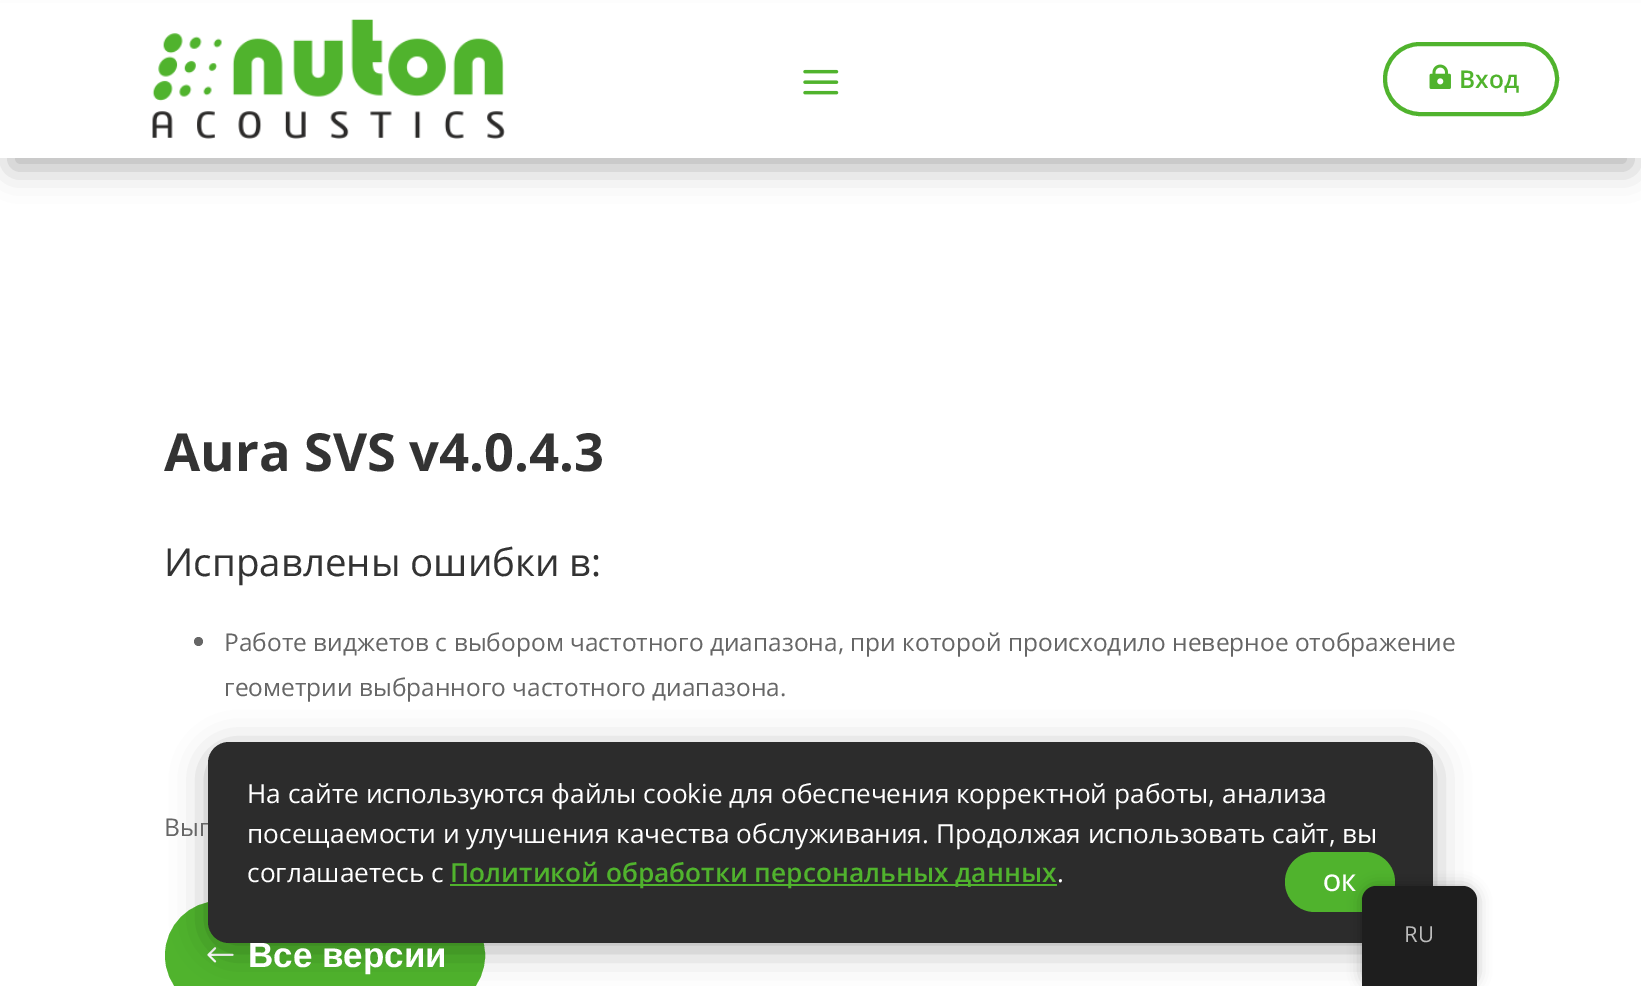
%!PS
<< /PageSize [1641 986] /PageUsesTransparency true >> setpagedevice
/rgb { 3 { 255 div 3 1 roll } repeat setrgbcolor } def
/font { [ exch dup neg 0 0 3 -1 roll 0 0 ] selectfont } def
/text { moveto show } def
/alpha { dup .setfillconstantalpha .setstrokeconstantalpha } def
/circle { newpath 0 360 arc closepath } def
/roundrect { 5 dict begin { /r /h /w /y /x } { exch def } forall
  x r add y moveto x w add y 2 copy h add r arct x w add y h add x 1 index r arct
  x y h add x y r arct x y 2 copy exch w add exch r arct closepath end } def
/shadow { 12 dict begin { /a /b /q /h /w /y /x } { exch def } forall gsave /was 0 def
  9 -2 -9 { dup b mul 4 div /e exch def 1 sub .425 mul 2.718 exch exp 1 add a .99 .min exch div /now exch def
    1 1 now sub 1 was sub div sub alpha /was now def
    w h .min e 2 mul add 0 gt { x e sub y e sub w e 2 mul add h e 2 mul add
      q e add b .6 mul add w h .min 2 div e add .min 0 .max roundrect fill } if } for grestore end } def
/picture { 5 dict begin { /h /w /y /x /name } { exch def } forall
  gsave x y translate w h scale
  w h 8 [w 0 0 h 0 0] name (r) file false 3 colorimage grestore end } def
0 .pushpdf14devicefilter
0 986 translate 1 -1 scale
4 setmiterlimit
255 255 255 rgb
0 0 1641 986 rectfill
0 0 0 rgb
11 32 1620 136 0 16 0.3 shadow
255 255 255 rgb
0 3 1641 155 rectfill
(img_01.rgb) 152 19 353 120 picture
(img_02.rgb) 803 69 36 26 picture
80 179 45 rgb
4 setlinewidth
1385 44 172 70 35 roundrect stroke
(img_03.rgb) 1429 64 22 25 picture
102 102 102 rgb
198.5 641.5 4.5 circle fill
80 179 45 rgb
172 908 306 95 47.5 roundrect gsave fill grestore
14 setlinewidth
stroke
(img_04.rgb) 207 947 27 16 picture
0 0 0 rgb
208 749 1225 201 21 17.5 0.3 shadow
/OpenSans-SemiBold 24.5 font
80 179 45 rgb
(Вход) 1459 88 text
/OpenSans-Bold 52.5 font
51 51 51 rgb
(Aura SVS v4.0.4.3) 164 471 text
/OpenSans-Regular 38.5 font
(Исправлены ошибки в:) 164 576 text
/OpenSans-Regular 24.5 font
102 102 102 rgb
(Работе виджетов с выбором частотного диапазона, при которой происходило неверное отображение) 224 651 text
(геометрии выбранного частотного диапазона.) 224 696 text
(Вып) 164 836 text
/LiberationSans-Bold 35 font
255 255 255 rgb
(Все версии) 248 967 text
44 44 44 rgb
208 742 1225 201 21 roundrect fill
/OpenSans-Regular 26.25 font
255 255 255 rgb
(На сайте используются файлы cookie для обеспечения корректной работы, анализа) 247 803 text
(посещаемости и улучшения качества обслуживания. Продолжая использовать сайт, вы) 247 843 text
(соглашаетесь с) 247 882 text
80 179 45 rgb
450 884 607 2 rectfill
/OpenSans-SemiBold 26.25 font
(Политикой обработки персональных данных) 450 882 text
/OpenSans-Regular 26.25 font
255 255 255 rgb
(.) 1057 882 text
80 179 45 rgb
1285 852 110 60 30 roundrect fill
/OpenSans-SemiBold 23 font
255 255 255 rgb
(ОК) 1323 891 text
0 0 0 rgb
1362 886 115 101 14 7 0.25 shadow
30 30 30 rgb
1376 886 moveto 87 0 rlineto 7.5 0 14 6.5 14 14 rcurveto 0 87 rlineto -115 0 rlineto 0 -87 rlineto 0 -7.5 6.5 -14 14 -14 rcurveto closepath fill
/OpenSans-Regular 22 font
189 189 189 rgb
(RU) 1404 942 text
.poppdf14devicefilter showpage
